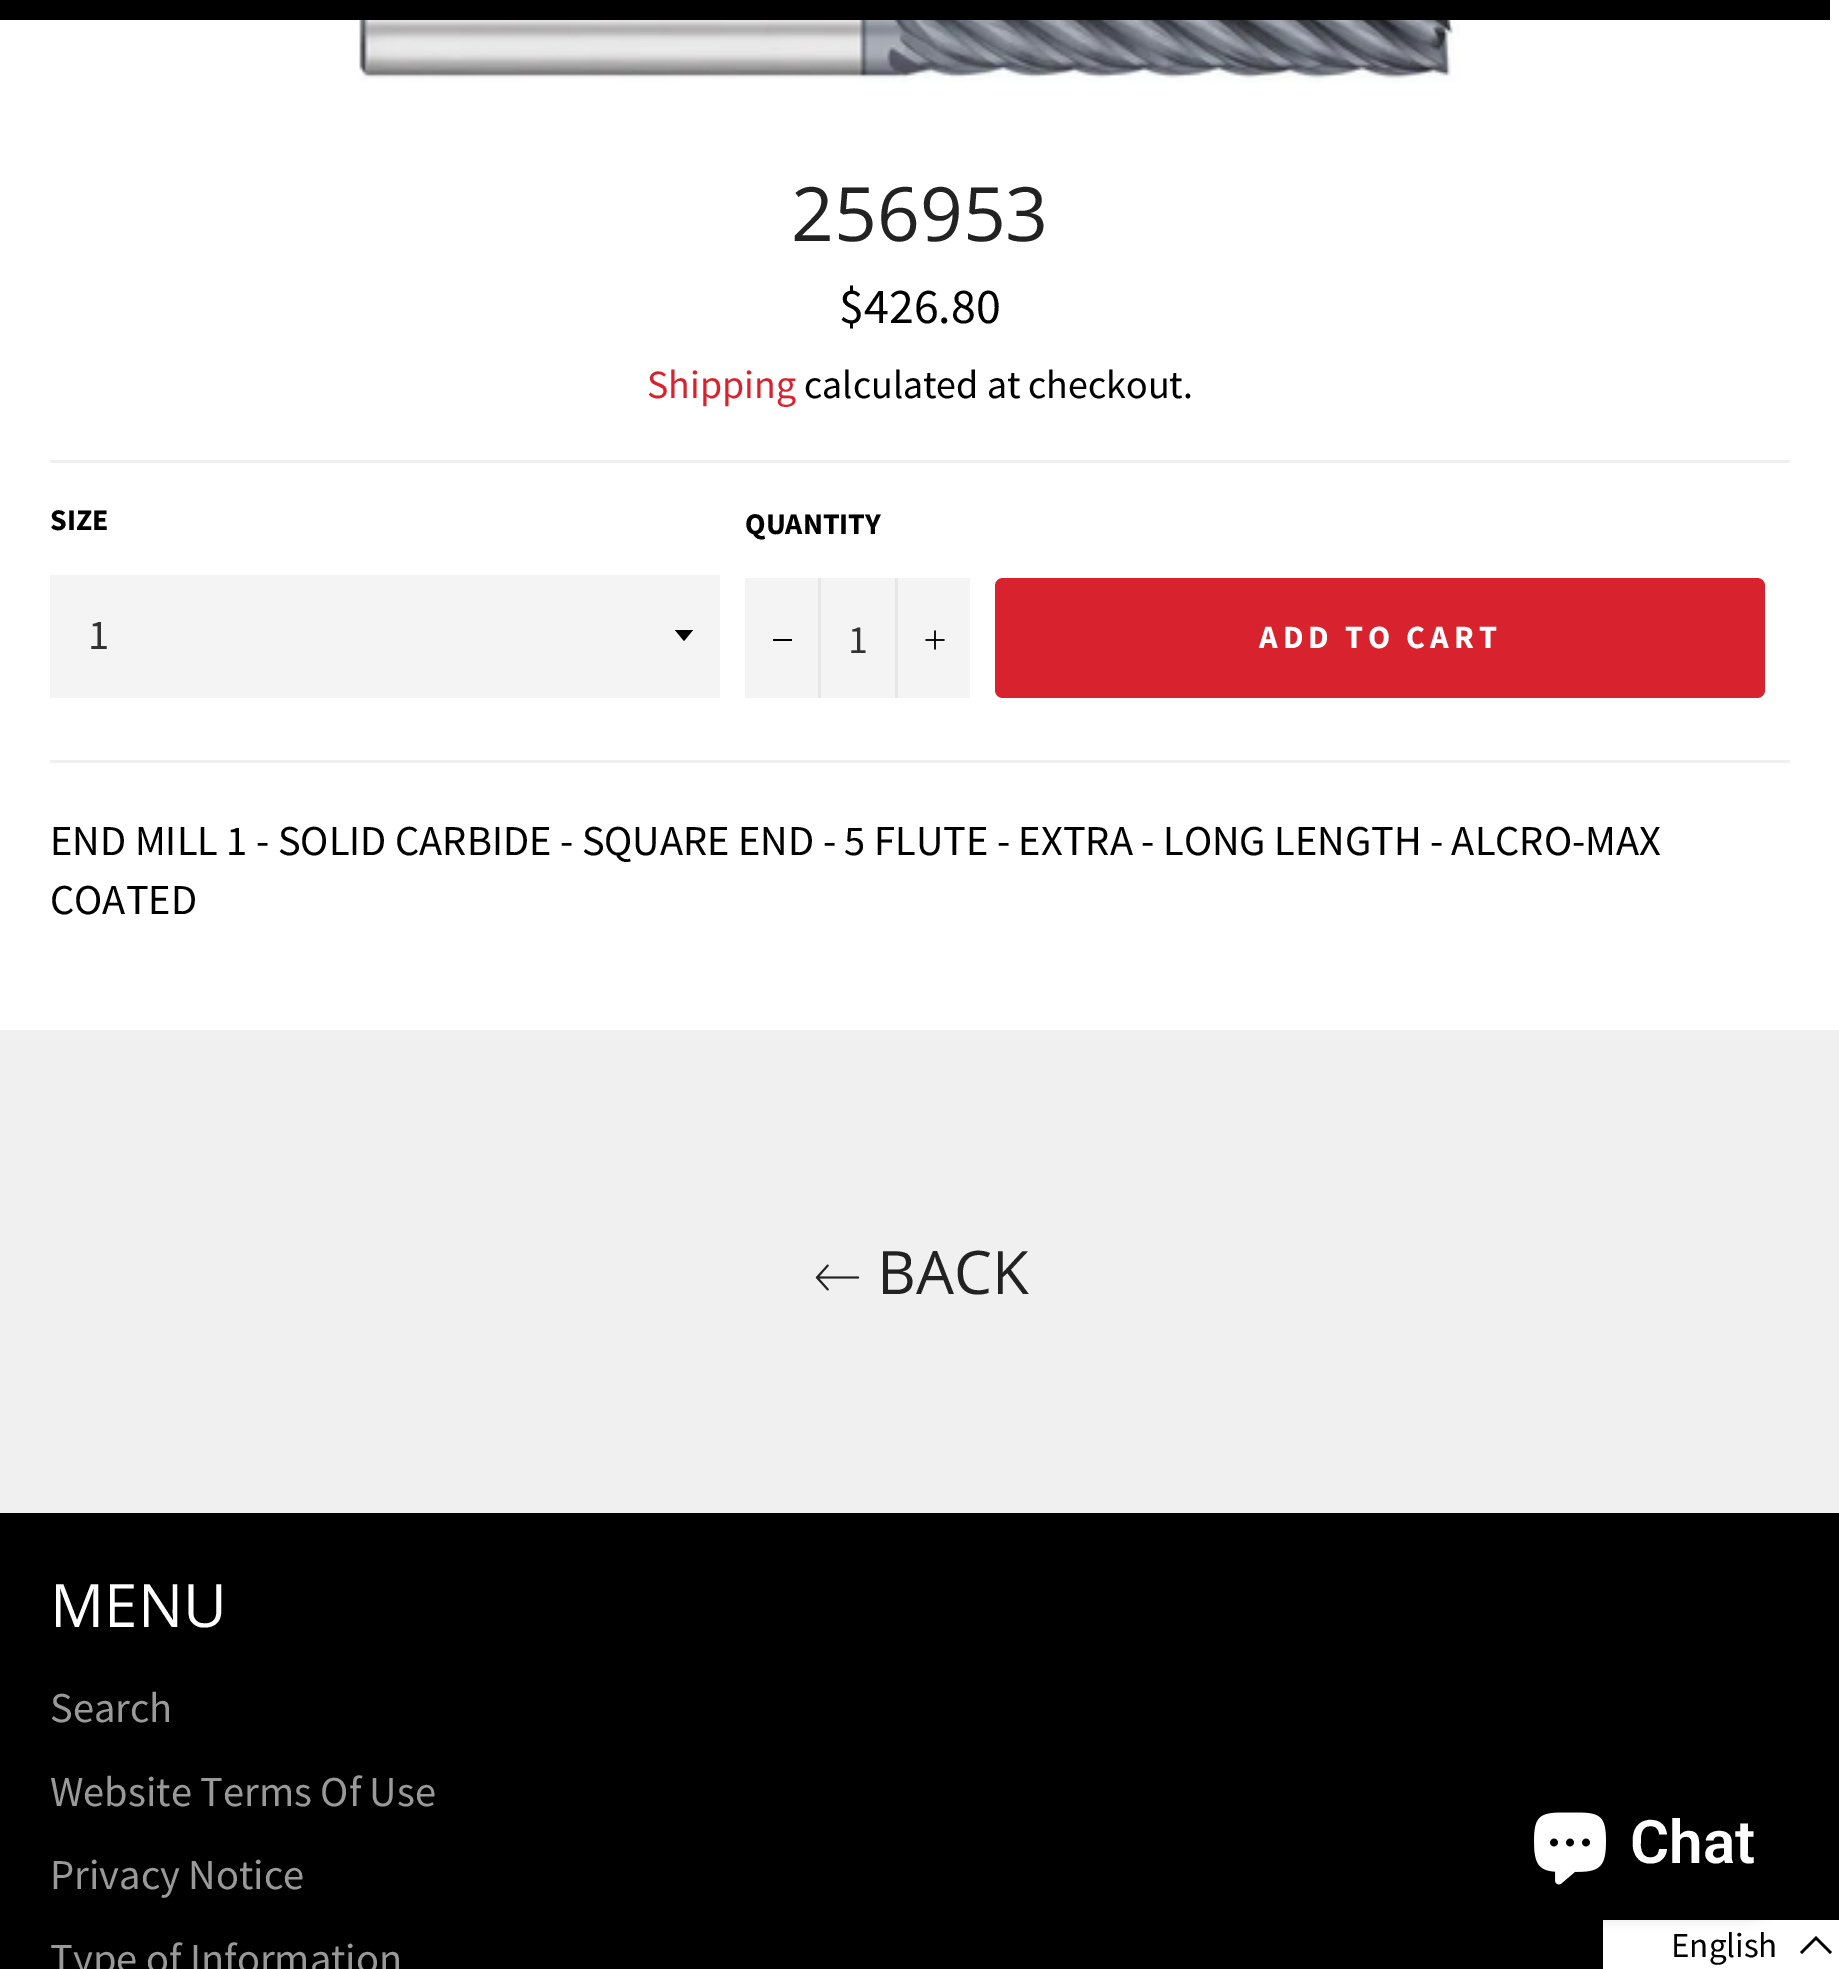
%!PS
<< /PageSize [1839 1969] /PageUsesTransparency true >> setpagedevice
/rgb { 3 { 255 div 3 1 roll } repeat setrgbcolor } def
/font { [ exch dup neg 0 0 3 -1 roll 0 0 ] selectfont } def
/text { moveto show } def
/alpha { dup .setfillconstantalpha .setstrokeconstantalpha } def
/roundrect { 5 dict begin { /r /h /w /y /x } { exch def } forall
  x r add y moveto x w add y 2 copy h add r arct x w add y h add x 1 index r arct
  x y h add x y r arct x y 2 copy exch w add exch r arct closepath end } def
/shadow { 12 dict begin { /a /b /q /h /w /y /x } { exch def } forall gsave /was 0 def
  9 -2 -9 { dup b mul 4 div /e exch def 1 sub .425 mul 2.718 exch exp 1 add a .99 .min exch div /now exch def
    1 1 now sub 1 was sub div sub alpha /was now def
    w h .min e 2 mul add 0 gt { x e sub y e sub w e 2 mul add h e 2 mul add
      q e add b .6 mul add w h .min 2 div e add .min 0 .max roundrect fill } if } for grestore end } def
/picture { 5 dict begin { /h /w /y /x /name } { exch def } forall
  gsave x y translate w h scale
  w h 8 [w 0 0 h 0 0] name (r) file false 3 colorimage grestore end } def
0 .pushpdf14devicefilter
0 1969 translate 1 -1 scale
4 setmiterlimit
255 255 255 rgb
0 0 1839 1969 rectfill
0 0 0 rgb
0 0 1830 20 rectfill
(img_01.rgb) 358 20 1102 63 picture
240 240 240 rgb
50 460 1740 3 rectfill
244 244 244 rgb
50 575 670 123 rectfill
0 0 0 rgb
675 630 moveto 9 11 rlineto 9 -11 rlineto closepath fill
244 244 244 rgb
745 578 225 120 rectfill
231 231 231 rgb
818 578 3 120 rectfill
0 0 0 rgb
773 639 19 2 rectfill
231 231 231 rgb
895 578 3 120 rectfill
(img_02.rgb) 925 630 20 20 picture
216 35 47 rgb
995 578 770 120 8 roundrect fill
240 240 240 rgb
50 760 1740 3 rectfill
0 1030 1839 483 rectfill
(img_03.rgb) 815 1264 45 27 picture
0 0 0 rgb
0 1513 1839 456 rectfill
255 255 255 rgb
1603 1920 236 49 rectfill
0 0 0 rgb
2.5 setlinewidth
1831 1953 moveto -15 -15 rlineto -15 15 rlineto stroke
gsave
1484 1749 moveto 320 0 rlineto 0 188 rlineto -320 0 rlineto closepath 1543 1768 moveto 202 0 rlineto 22 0 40 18 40 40 rcurveto 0 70 rlineto 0 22 -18 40 -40 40 rcurveto -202 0 rlineto -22 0 -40 -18 -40 -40 rcurveto 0 -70 rlineto 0 -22 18 -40 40 -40 rcurveto closepath eoclip newpath
1503 1768 282 150 40 6 0.15 shadow
grestore
(img_04.rgb) 1534 1812 72 73 picture
/OpenSans-Regular 75 font
34 34 34 rgb
(256953) 791 241 text
/SourceSansPro-Regular 50 font
0 0 0 rgb
($426.80) 839 323 text
/SourceSansPro-Regular 40 font
216 35 47 rgb
(Shipping) 647 398 text
0 0 0 rgb
(calculated at checkout.) 804 398 text
/SourceSansPro-Bold 30 font
(SIZE) 50 530 text
/SourceSansPro-Regular 42.5 font
51 51 51 rgb
(1) 88 649 text
/SourceSansPro-Bold 30 font
0 0 0 rgb
(QUANTITY) 745 534 text
/SourceSansPro-Regular 40 font
51 51 51 rgb
(1) 848 653 text
/SourceSansPro-Bold 32.5 font
255 255 255 rgb
1259 648 moveto 4.9 0 (ADD TO CART) ashow
/SourceSansPro-Regular 42.5 font
0 0 0 rgb
(END MILL 1 - SOLID CARBIDE - SQUARE END - 5 FLUTE - EXTRA - LONG LENGTH - ALCRO-MAX) 50 855 text
(COATED) 50 914 text
/OpenSans-Regular 60 font
34 34 34 rgb
(BACK) 877 1294 text
255 255 255 rgb
(MENU) 50 1627 text
/SourceSansPro-Regular 42.5 font
153 153 153 rgb
(Search) 50 1722 text
(Website Terms Of Use) 50 1806 text
(Privacy Notice) 50 1889 text
(Type of Information) 50 1973 text
/Roboto-SemiBold 60 font
255 255 255 rgb
(Chat) 1630 1863 text
/SourceSansPro-Regular 35 font
0 0 0 rgb
(English) 1671 1957 text
.poppdf14devicefilter showpage
